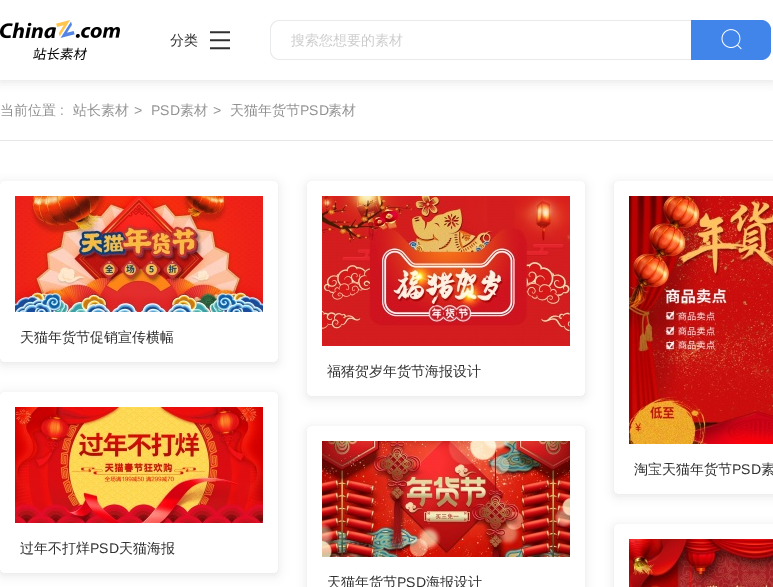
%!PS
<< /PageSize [773 587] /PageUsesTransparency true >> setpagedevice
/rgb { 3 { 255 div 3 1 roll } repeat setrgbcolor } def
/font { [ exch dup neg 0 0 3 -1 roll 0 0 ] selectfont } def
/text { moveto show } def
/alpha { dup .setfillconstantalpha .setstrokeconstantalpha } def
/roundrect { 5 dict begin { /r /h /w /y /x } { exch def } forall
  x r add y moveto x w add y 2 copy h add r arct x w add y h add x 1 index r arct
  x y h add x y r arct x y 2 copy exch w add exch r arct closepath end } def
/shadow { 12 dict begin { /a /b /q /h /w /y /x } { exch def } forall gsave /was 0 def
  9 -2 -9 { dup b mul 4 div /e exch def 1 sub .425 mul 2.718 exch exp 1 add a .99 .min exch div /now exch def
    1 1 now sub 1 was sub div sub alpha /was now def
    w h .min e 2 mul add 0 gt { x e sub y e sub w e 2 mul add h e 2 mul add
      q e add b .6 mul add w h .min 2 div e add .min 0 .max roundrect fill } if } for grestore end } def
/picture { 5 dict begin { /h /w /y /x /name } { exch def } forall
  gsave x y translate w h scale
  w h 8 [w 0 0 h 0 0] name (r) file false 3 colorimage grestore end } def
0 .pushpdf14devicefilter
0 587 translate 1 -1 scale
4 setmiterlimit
255 255 255 rgb
0 0 773 587 rectfill
gsave
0 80 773 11 rectclip
204 204 204 rgb
0 2 773 80 0 5 0.5 shadow
grestore
(img_01.rgb) 0 20 120 40 picture
(img_02.rgb) 210 31 20 19 picture
232 234 236 rgb
280 20 moveto 411 0 rlineto 0 40 rlineto -411 0 rlineto -6 0 -10 -4 -10 -10 rcurveto 0 -20 rlineto 0 -6 4 -10 10 -10 rcurveto closepath 280 21 moveto 411 0 rlineto 0 38 rlineto -411 0 rlineto -11 0 -9 -12 -9 -19 rcurveto 0 -7 -2 -19 9 -19 rcurveto closepath eofill
255 255 255 rgb
281 21 moveto 410 0 rlineto 0 38 rlineto -410 0 rlineto -5.5 0 -10 -4.5 -10 -10 rcurveto 0 -18 rlineto 0 -5.5 4.5 -10 10 -10 rcurveto closepath fill
65 133 235 rgb
691 20 moveto 70 0 rlineto 5.5 0 10 4.5 10 10 rcurveto 0 20 rlineto 0 5.5 -4.5 10 -10 10 rcurveto -70 0 rlineto closepath fill
(img_03.rgb) 721 29 21 21 picture
229 230 229 rgb
0 140 773 1 rectfill
gsave
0 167 moveto 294 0 rlineto 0 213 rlineto -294 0 rlineto closepath 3 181 moveto 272 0 rlineto 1.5 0 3 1.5 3 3 rcurveto 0 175 rlineto 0 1.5 -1.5 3 -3 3 rcurveto -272 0 rlineto -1.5 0 -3 -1.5 -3 -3 rcurveto 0 -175 rlineto 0 -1.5 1.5 -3 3 -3 rcurveto closepath eoclip newpath
204 204 204 rgb
0 183 278 181 3 5 0.5 shadow
grestore
(img_04.rgb) 15 196 248 116 picture
gsave
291 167 moveto 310 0 rlineto 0 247 rlineto -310 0 rlineto closepath 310 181 moveto 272 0 rlineto 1.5 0 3 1.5 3 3 rcurveto 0 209 rlineto 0 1.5 -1.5 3 -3 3 rcurveto -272 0 rlineto -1.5 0 -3 -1.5 -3 -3 rcurveto 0 -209 rlineto 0 -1.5 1.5 -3 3 -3 rcurveto closepath eoclip newpath
204 204 204 rgb
307 183 278 215 3 5 0.5 shadow
grestore
(img_05.rgb) 322 196 248 150 picture
gsave
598 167 moveto 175 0 rlineto 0 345 rlineto -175 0 rlineto closepath 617 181 moveto 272 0 rlineto 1.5 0 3 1.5 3 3 rcurveto 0 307 rlineto 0 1.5 -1.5 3 -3 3 rcurveto -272 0 rlineto -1.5 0 -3 -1.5 -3 -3 rcurveto 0 -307 rlineto 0 -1.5 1.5 -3 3 -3 rcurveto closepath eoclip newpath
204 204 204 rgb
614 183 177 313 3 5 0.5 shadow
grestore
(img_06.rgb) 629 196 144 248 picture
gsave
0 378 moveto 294 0 rlineto 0 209 rlineto -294 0 rlineto closepath 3 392 moveto 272 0 rlineto 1.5 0 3 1.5 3 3 rcurveto 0 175 rlineto 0 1.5 -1.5 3 -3 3 rcurveto -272 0 rlineto -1.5 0 -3 -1.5 -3 -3 rcurveto 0 -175 rlineto 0 -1.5 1.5 -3 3 -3 rcurveto closepath eoclip newpath
204 204 204 rgb
0 394 278 181 3 5 0.5 shadow
grestore
(img_07.rgb) 15 407 248 116 picture
gsave
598 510 moveto 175 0 rlineto 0 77 rlineto -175 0 rlineto closepath 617 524 moveto 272 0 rlineto 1.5 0 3 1.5 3 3 rcurveto 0 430 rlineto 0 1.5 -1.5 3 -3 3 rcurveto -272 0 rlineto -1.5 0 -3 -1.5 -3 -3 rcurveto 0 -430 rlineto 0 -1.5 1.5 -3 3 -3 rcurveto closepath eoclip newpath
204 204 204 rgb
614 526 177 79 3 5 0.5 shadow
grestore
(img_08.rgb) 629 539 144 48 picture
gsave
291 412 moveto 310 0 rlineto 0 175 rlineto -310 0 rlineto closepath 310 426 moveto 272 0 rlineto 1.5 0 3 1.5 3 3 rcurveto 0 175 rlineto 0 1.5 -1.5 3 -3 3 rcurveto -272 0 rlineto -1.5 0 -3 -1.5 -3 -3 rcurveto 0 -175 rlineto 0 -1.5 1.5 -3 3 -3 rcurveto closepath eoclip newpath
204 204 204 rgb
307 428 278 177 3 5 0.5 shadow
grestore
(img_09.rgb) 322 441 248 116 picture
/WenQuanYiZenHei-Medium 14 font
49 49 49 rgb
(分类) 170 45 text
204 204 204 rgb
(搜索您想要的素材) 291 45 text
145 145 145 rgb
(当前位置) 0 115 text
/LiberationSans-Regular 14 font
(:) 60 115 text
/WenQuanYiZenHei-Medium 14 font
(站长素材) 73 115 text
/LiberationSans-Regular 14 font
(>) 134 115 text
(PSD) 151 115 text
/WenQuanYiZenHei-Medium 14 font
(素材) 180 115 text
/LiberationSans-Regular 14 font
(>) 213 115 text
/WenQuanYiZenHei-Medium 14 font
(天猫年货节) 230 115 text
/LiberationSans-Regular 14 font
(PSD) 300 115 text
/WenQuanYiZenHei-Medium 14 font
(素材) 328 115 text
49 49 49 rgb
(天猫年货节促销宣传横幅) 20 342 text
(福猪贺岁年货节海报设计) 327 376 text
(淘宝天猫年货节) 634 474 text
/LiberationSans-Regular 14 font
(PSD) 732 474 text
/WenQuanYiZenHei-Medium 14 font
(素) 761 474 text
(过年不打烊) 20 553 text
/LiberationSans-Regular 14 font
(PSD) 90 553 text
/WenQuanYiZenHei-Medium 14 font
(天猫海报) 119 553 text
(天猫年货节) 327 587 text
/LiberationSans-Regular 14 font
(PSD) 397 587 text
/WenQuanYiZenHei-Medium 14 font
(海报设计) 426 587 text
.poppdf14devicefilter showpage
